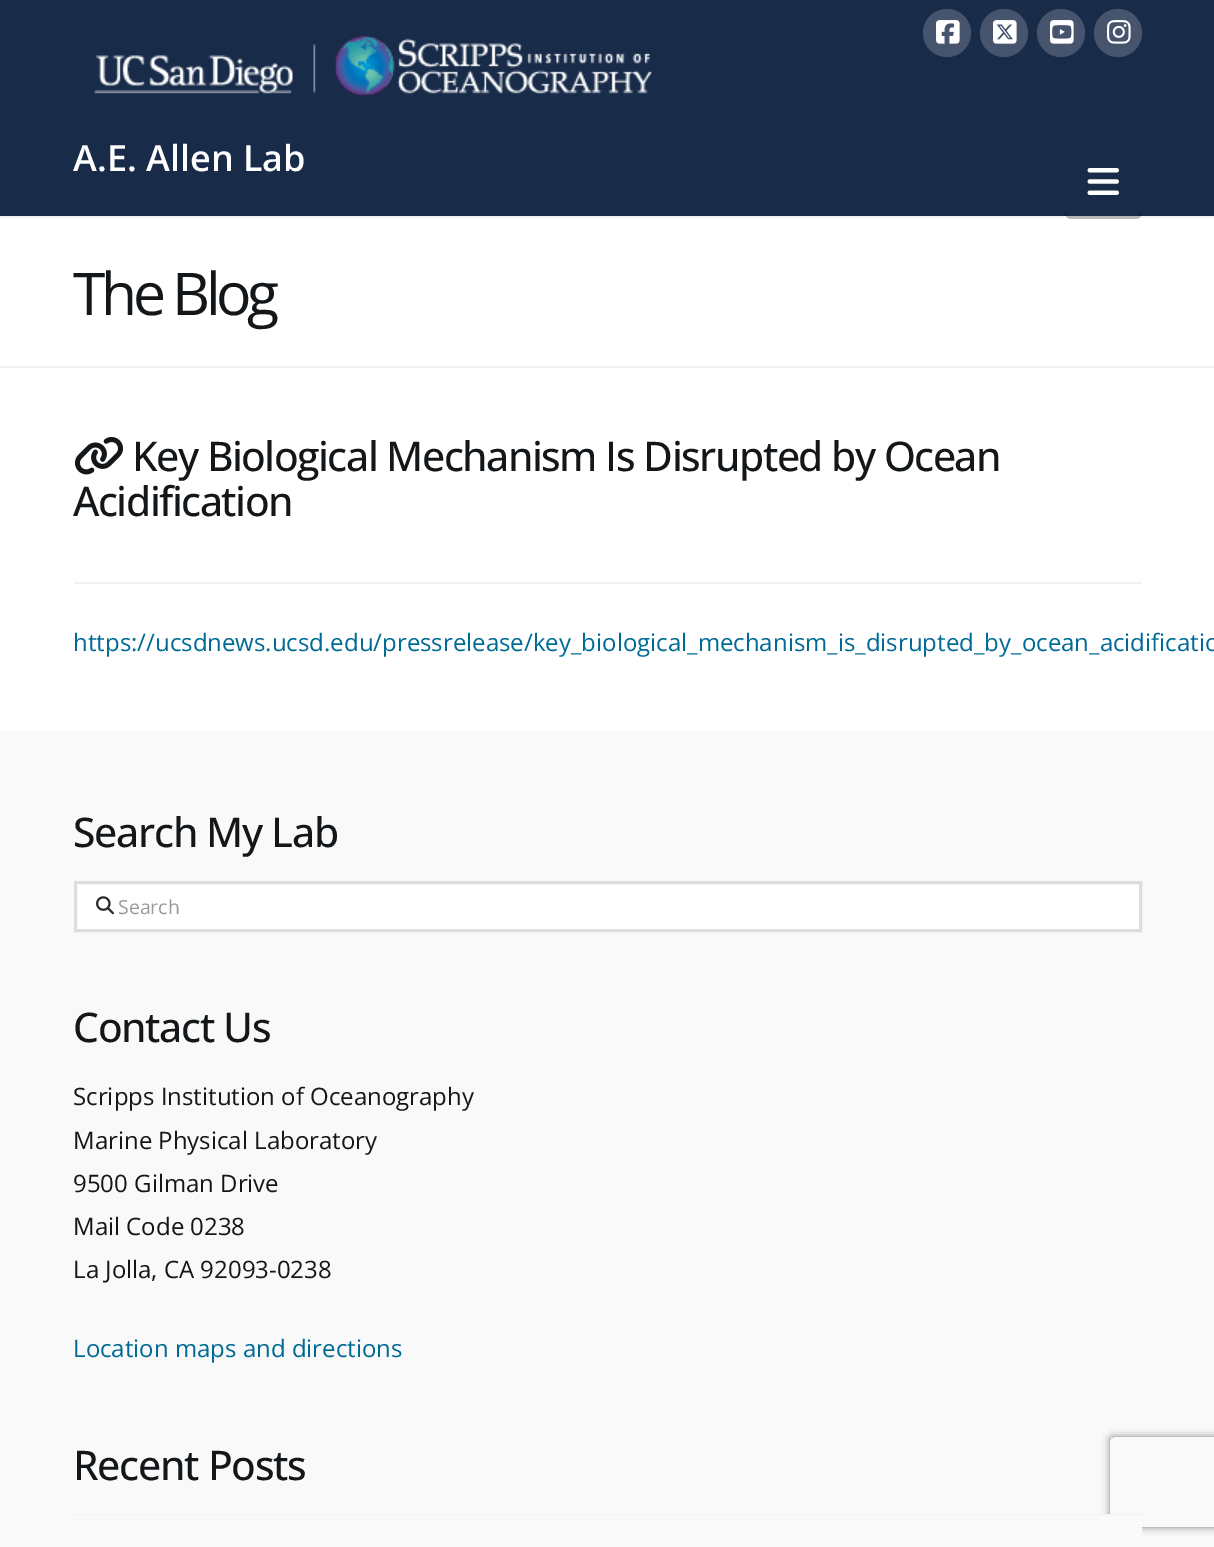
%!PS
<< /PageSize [1214 1547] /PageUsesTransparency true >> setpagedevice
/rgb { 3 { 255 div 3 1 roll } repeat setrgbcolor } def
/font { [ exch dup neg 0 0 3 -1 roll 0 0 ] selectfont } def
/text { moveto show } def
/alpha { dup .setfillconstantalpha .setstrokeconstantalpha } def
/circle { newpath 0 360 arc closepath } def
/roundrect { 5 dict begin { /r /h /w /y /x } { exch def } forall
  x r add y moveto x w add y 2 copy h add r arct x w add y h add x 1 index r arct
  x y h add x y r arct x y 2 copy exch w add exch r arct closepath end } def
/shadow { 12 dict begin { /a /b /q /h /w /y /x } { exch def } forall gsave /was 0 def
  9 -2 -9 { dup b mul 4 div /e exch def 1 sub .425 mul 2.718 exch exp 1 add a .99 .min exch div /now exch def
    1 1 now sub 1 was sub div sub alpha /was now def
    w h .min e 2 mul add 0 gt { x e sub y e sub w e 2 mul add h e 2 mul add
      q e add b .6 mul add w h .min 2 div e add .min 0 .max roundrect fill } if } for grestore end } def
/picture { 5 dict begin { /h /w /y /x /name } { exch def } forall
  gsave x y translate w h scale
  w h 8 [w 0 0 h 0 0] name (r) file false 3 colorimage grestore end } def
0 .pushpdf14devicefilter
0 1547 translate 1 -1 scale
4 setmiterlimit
255 255 255 rgb
0 0 1214 1547 rectfill
24 43 73 rgb
0 0 1214 216 rectfill
(img_01.rgb) 94 35 558 61 picture
70 85 109 rgb
947 33 24 circle fill
(img_02.rgb) 936 20 24 24 picture
1004 33 24 circle fill
(img_03.rgb) 993 20 24 24 picture
1061 33 24 circle fill
(img_04.rgb) 1050 20 24 24 picture
1118 33 24 circle fill
(img_05.rgb) 1107 20 24 24 picture
242 242 242 rgb
0 216 1214 2 rectfill
0.25 alpha
0 0 0 rgb
1065 210 moveto 0 3 rlineto 0 3 3 6 6 6 rcurveto 65 0 rlineto 3 0 6 -3 6 -6 rcurveto 0 -57 rlineto 0 -2 rlineto 0 56 rlineto 0 3 -3 6 -6 6 rcurveto -65 0 rlineto -3 0 -6 -3 -6 -6 rcurveto closepath fill
1 alpha
(img_06.rgb) 1087 168 32 27 picture
242 242 242 rgb
0 366 1214 2 rectfill
74 582 1068 2 rectfill
(img_07.rgb) 74 437 50 38 picture
249 249 249 rgb
0 731 1214 816 rectfill
255 255 255 rgb
75.5 882.5 moveto 1065 0 rlineto 0 48 rlineto -1065 0 rlineto closepath gsave fill grestore
221 221 221 rgb
3 setlinewidth
stroke
(img_08.rgb) 96 896 18 19 picture
gsave
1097 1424 moveto 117 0 rlineto 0 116 rlineto -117 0 rlineto closepath 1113 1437 moveto 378 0 rlineto 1.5 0 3 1.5 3 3 rcurveto 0 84 rlineto 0 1.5 -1.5 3 -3 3 rcurveto -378 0 rlineto -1.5 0 -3 -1.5 -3 -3 rcurveto 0 -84 rlineto 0 -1.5 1.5 -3 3 -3 rcurveto closepath eoclip newpath
128 128 128 rgb
1110 1437 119 90 3 4 1 shadow
grestore
242 242 242 rgb
74 1514 1068 1 rectfill
250 250 250 rgb
1101 1515 41 21 rectfill
/OpenSans-SemiBold 36 font
255 255 255 rgb
(A.E. Allen Lab) 73 171 text
/OpenSans-Regular 59 font
20 23 26 rgb
73 315 moveto -4.5 0 (The Blog) ashow
/OpenSans-Medium 40.8 font
132 471 moveto -1.45 0 (Key Biological Mechanism Is Disrupted by Ocean) ashow
73 516 moveto -1.45 0 (Acidification) ashow
/OpenSans-Regular 24 font
0 106 150 rgb
(https://ucsdnews.ucsd.edu/pressrelease/key_biological_mechanism_is_disrupted_by_ocean_acidificatio) 73 651 text
/OpenSans-Medium 40.8 font
20 23 26 rgb
73 847 moveto -1.25 0 (Search My Lab) ashow
/OpenSans-Regular 19.5 font
153 153 153 rgb
(Search) 118 914 text
/OpenSans-Medium 40.8 font
20 23 26 rgb
73 1042 moveto -1.25 0 (Contact Us) ashow
/OpenSans-Regular 24 font
(Scripps Institution of Oceanography) 73 1105 text
(Marine Physical Laboratory) 73 1149 text
(9500 Gilman Drive) 73 1192 text
(Mail Code 0238) 73 1235 text
(La Jolla, CA 92093-0238) 73 1278 text
0 106 150 rgb
(Location maps and directions) 73 1357 text
/OpenSans-Medium 40.8 font
20 23 26 rgb
73 1480 moveto -1.25 0 (Recent Posts) ashow
.poppdf14devicefilter showpage
